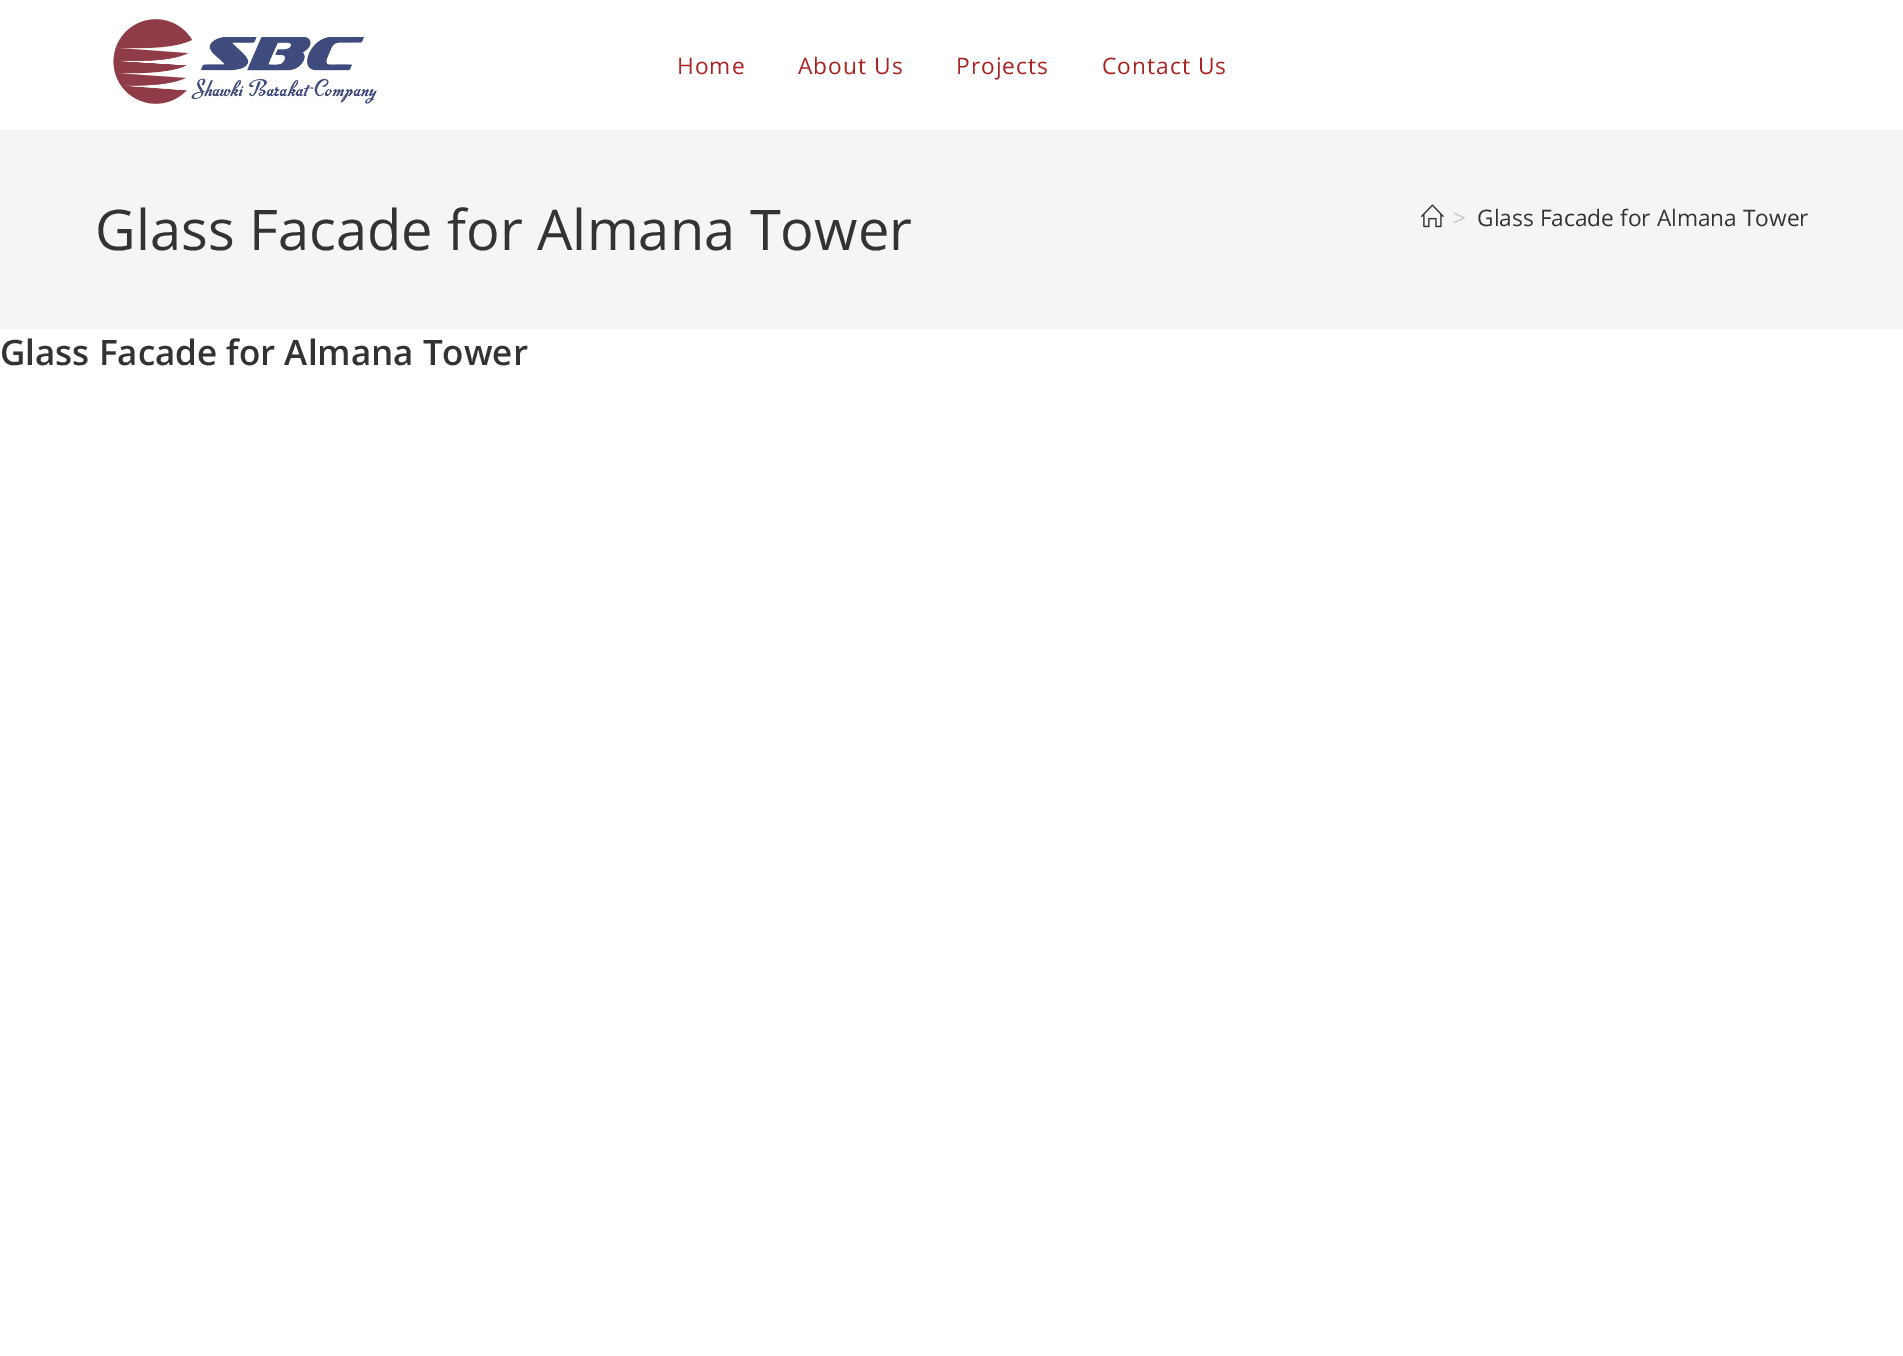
%!PS
<< /PageSize [1903 1356] >> setpagedevice
/rgb { 3 { 255 div 3 1 roll } repeat setrgbcolor } def
/font { [ exch dup neg 0 0 3 -1 roll 0 0 ] selectfont } def
/text { moveto show } def
/picture { 5 dict begin { /h /w /y /x /name } { exch def } forall
  gsave x y translate w h scale
  w h 8 [w 0 0 h 0 0] name (r) file false 3 colorimage grestore end } def
0 1356 translate 1 -1 scale
4 setmiterlimit
255 255 255 rgb
0 0 1903 1356 rectfill
241 241 241 rgb
0 130 1903 2 rectfill
(img_01.rgb) 113 19 264 85 picture
245 245 245 rgb
0 132 1903 197 rectfill
(img_02.rgb) 1421 204 23 24 picture
/OpenSans-Regular 22.75 font
170 34 34 rgb
677 74 moveto 1 0 (Home) ashow
798 74 moveto 1 0 (About Us) ashow
956 74 moveto 1 0 (Projects) ashow
1102 74 moveto 1 0 (Contact Us) ashow
/OpenSans-Regular 56 font
51 51 51 rgb
(Glass Facade for Almana Tower) 95 250 text
/OpenSans-Regular 22.75 font
198 198 198 rgb
(>) 1453 226 text
51 51 51 rgb
(Glass Facade for Almana Tower) 1477 226 text
/OpenSans-SemiBold 35 font
(Glass Facade for Almana Tower) 0 365 text
showpage
